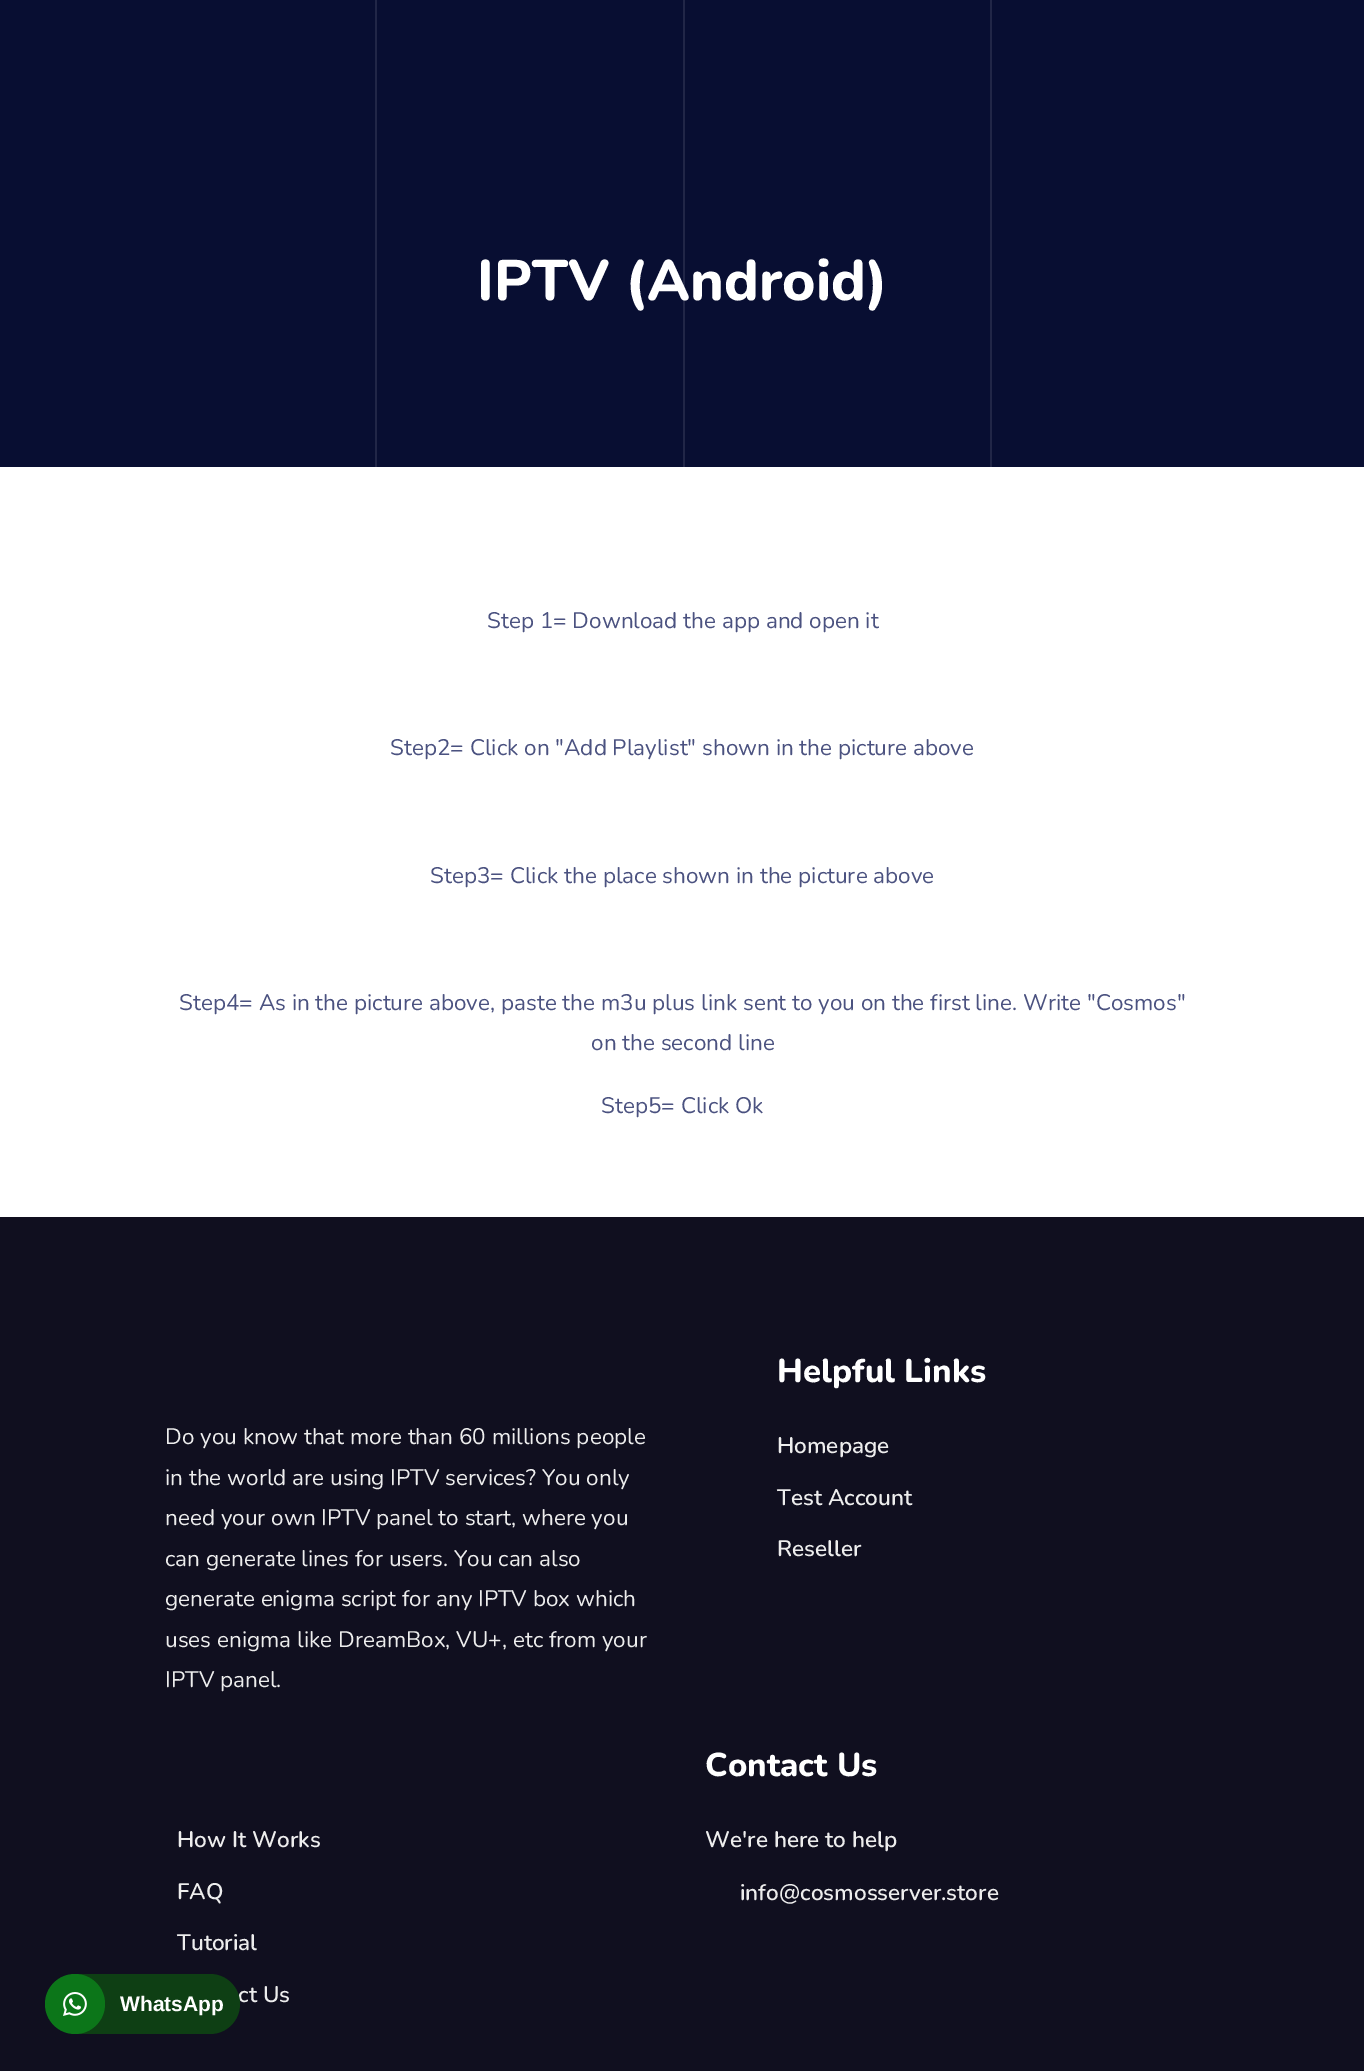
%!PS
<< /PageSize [1364 2071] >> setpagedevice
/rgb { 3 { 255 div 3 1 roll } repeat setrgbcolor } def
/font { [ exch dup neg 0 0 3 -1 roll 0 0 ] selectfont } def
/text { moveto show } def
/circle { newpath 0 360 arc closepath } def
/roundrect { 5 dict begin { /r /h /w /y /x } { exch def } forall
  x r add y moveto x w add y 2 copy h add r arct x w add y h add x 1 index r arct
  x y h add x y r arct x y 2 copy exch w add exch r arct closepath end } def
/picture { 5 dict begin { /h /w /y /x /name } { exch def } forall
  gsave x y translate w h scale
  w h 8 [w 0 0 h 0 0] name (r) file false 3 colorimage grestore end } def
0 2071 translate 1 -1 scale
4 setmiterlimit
255 255 255 rgb
0 0 1364 2071 rectfill
8 14 50 rgb
0 0 1364 467 rectfill
33 38 71 rgb
375 0 2 467 rectfill
683 0 2 467 rectfill
990 0 2 467 rectfill
16 15 31 rgb
0 1217 1364 854 rectfill
/Nunito-ExtraBold 57 font
255 255 255 rgb
(IPTV \(Android\)) 477 300 text
/Nunito-Regular 22.5 font
75 82 128 rgb
(Step 1= Download the app and open it) 487 628 text
(Step2= Click on "Add Playlist" shown in the picture above) 390 755 text
(Step3= Click the place shown in the picture above) 430 883 text
(Step4= As in the picture above, paste the m3u plus link sent to you on the first line. Write "Cosmos") 179 1010 text
(on the second line) 591 1050 text
(Step5= Click Ok) 601 1113 text
237 237 237 rgb
(Do you know that more than 60 millions people) 165 1444 text
(in the world are using IPTV services? You only) 165 1485 text
(need your own IPTV panel to start, where you) 165 1525 text
(can generate lines for users. You can also) 165 1566 text
(generate enigma script for any IPTV box which) 165 1606 text
(uses enigma like DreamBox, VU+, etc from your) 165 1647 text
(IPTV panel.) 165 1687 text
/Nunito-ExtraBold 33 font
255 255 255 rgb
(Helpful Links) 777 1382 text
/Nunito-SemiBold 22.5 font
237 237 237 rgb
(Homepage) 777 1453 text
(Test Account) 777 1505 text
(Reseller) 777 1556 text
(How It Works) 177 1847 text
(FAQ) 177 1899 text
(Tutorial) 177 1950 text
(ct Us) 238 2002 text
/Nunito-ExtraBold 33 font
255 255 255 rgb
(Contact Us) 705 1776 text
/Nunito-SemiBold 22.5 font
237 237 237 rgb
(We're here to help) 705 1847 text
(info@cosmosserver.store) 740 1900 text
14 63 20 rgb
53 1974 187 60 30 roundrect fill
12 118 25 rgb
75 2004 30 circle fill
(img_01.rgb) 63 1992 24 24 picture
/LiberationSans-Bold 21 font
255 255 255 rgb
(WhatsApp) 120 2011 text
showpage
